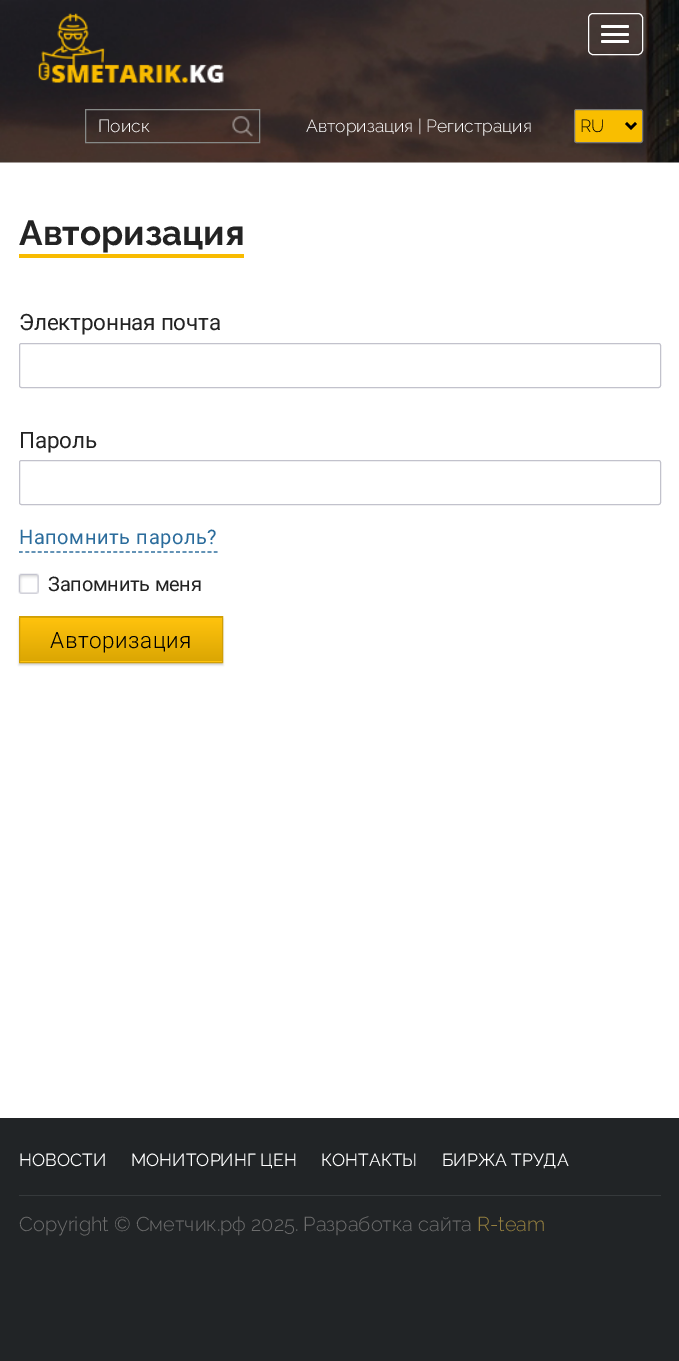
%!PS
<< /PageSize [679 1361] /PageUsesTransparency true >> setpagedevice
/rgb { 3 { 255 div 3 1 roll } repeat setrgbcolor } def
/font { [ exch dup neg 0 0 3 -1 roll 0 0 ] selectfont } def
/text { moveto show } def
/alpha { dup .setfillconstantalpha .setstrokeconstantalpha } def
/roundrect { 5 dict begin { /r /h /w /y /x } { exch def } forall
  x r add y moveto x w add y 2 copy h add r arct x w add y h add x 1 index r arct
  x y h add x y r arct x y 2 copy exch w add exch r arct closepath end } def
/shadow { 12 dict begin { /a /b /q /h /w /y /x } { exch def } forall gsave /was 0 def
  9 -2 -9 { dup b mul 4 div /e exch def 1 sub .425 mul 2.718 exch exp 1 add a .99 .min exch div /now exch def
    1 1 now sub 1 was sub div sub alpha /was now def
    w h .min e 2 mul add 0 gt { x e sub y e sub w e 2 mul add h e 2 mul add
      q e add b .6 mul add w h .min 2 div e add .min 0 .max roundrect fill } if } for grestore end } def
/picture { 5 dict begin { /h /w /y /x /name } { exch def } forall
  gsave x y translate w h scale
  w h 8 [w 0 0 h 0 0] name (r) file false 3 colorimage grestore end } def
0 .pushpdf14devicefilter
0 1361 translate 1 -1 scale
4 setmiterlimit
255 255 255 rgb
0 0 679 1361 rectfill
(img_01.rgb) 0 0 679 163 picture
(img_02.rgb) 38 13 186 70 picture
588.5 13.5 54 41 4.5 roundrect stroke
601 25 28 3 1.5 roundrect fill
601 33 28 3 1.5 roundrect fill
601 40 28 3 1.5 roundrect fill
134 137 135 rgb
85.5 109.5 174 33 rectstroke
(img_03.rgb) 232 116 21 21 picture
249 190 0 rgb
574.5 109.5 68 33 2 roundrect gsave fill grestore
118 118 118 rgb
stroke
1 1 1 rgb
2.5 setlinewidth
626 123 moveto 5 5 rlineto 5 -5 rlineto stroke
248 187 0 rgb
19 254 225 4 rectfill
194 194 204 rgb
1 setlinewidth
19.5 343.5 641 44 2 roundrect stroke
19.5 460.5 641 44 2 roundrect stroke
43 108 156 rgb
1.2 setlinewidth
[3.75 2.54] 0 setdash
19 552 moveto 198.5 0 rlineto stroke
(img_04.rgb) 18 573 21 21 picture
0 0 0 rgb
19 619 204 46 0 1 0.19 shadow
gsave 19 617 moveto 204 0 rlineto 0 1 rlineto -204 0 rlineto closepath clip newpath
<< /ShadingType 2 /ColorSpace /DeviceRGB /Coords [121 618 121 574] /Extend [true true] /Function << /FunctionType 2 /Domain [0 1] /C0 [0.859 0.651 0.012] /C1 [1 0.765 0.051] /N 1 >> >> shfill grestore
gsave 20 618 moveto 202 0 rlineto 0 43 rlineto -202 0 rlineto closepath clip newpath
<< /ShadingType 2 /ColorSpace /DeviceRGB /Coords [121 661 121 618] /Extend [true true] /Function << /FunctionType 2 /Domain [0 1] /C0 [0.859 0.651 0.012] /C1 [1 0.765 0.051] /N 1 >> >> shfill grestore
gsave 19 661 moveto 204 0 rlineto 0 1 rlineto -204 0 rlineto closepath clip newpath
<< /ShadingType 2 /ColorSpace /DeviceRGB /Coords [121 705 121 661] /Extend [true true] /Function << /FunctionType 2 /Domain [0 1] /C0 [0.859 0.651 0.012] /C1 [1 0.765 0.051] /N 1 >> >> shfill grestore
209 159 4 rgb
1 setlinewidth
[] 0 setdash
19.5 616.5 203 46 rectstroke
33 36 38 rgb
0 1118 679 243 rectfill
53 57 59 rgb
19 1195 642 1 rectfill
/Raleway-Light 17.5 font
255 255 255 rgb
(Поиск) 98 132 text
(Авторизация | Регистрация) 306 132 text
1 1 1 rgb
(RU) 580 132 text
/Raleway-Bold 35 font
35 35 35 rgb
(Авторизация) 19 245 text
/Roboto-Regular 22.5 font
19 330 moveto -0.25 0 (Электронная почта) ashow
19 448 moveto -0.25 0 (Пароль) ashow
/Roboto-Regular 20 font
43 108 156 rgb
19 544 moveto 0.6 0 (Напомнить пароль?) ashow
35 35 35 rgb
48 591 moveto -0.25 0 (Запомнить меня) ashow
/Roboto-Light 22.5 font
1 1 1 rgb
50 648 moveto 0.5 0 (Авторизация) ashow
/Raleway-Regular 17.5 font
255 255 255 rgb
(НОВОСТИ) 19 1166 text
(МОНИТОРИНГ ЦЕН) 131 1166 text
(КОНТАКТЫ) 321 1166 text
(БИРЖА ТРУДА) 442 1166 text
/Raleway-Light 20 font
109 109 109 rgb
(Copyright © Сметчик.рф 2025. Разработка сайта) 19 1231 text
148 127 63 rgb
(R-team) 477 1231 text
.poppdf14devicefilter showpage
